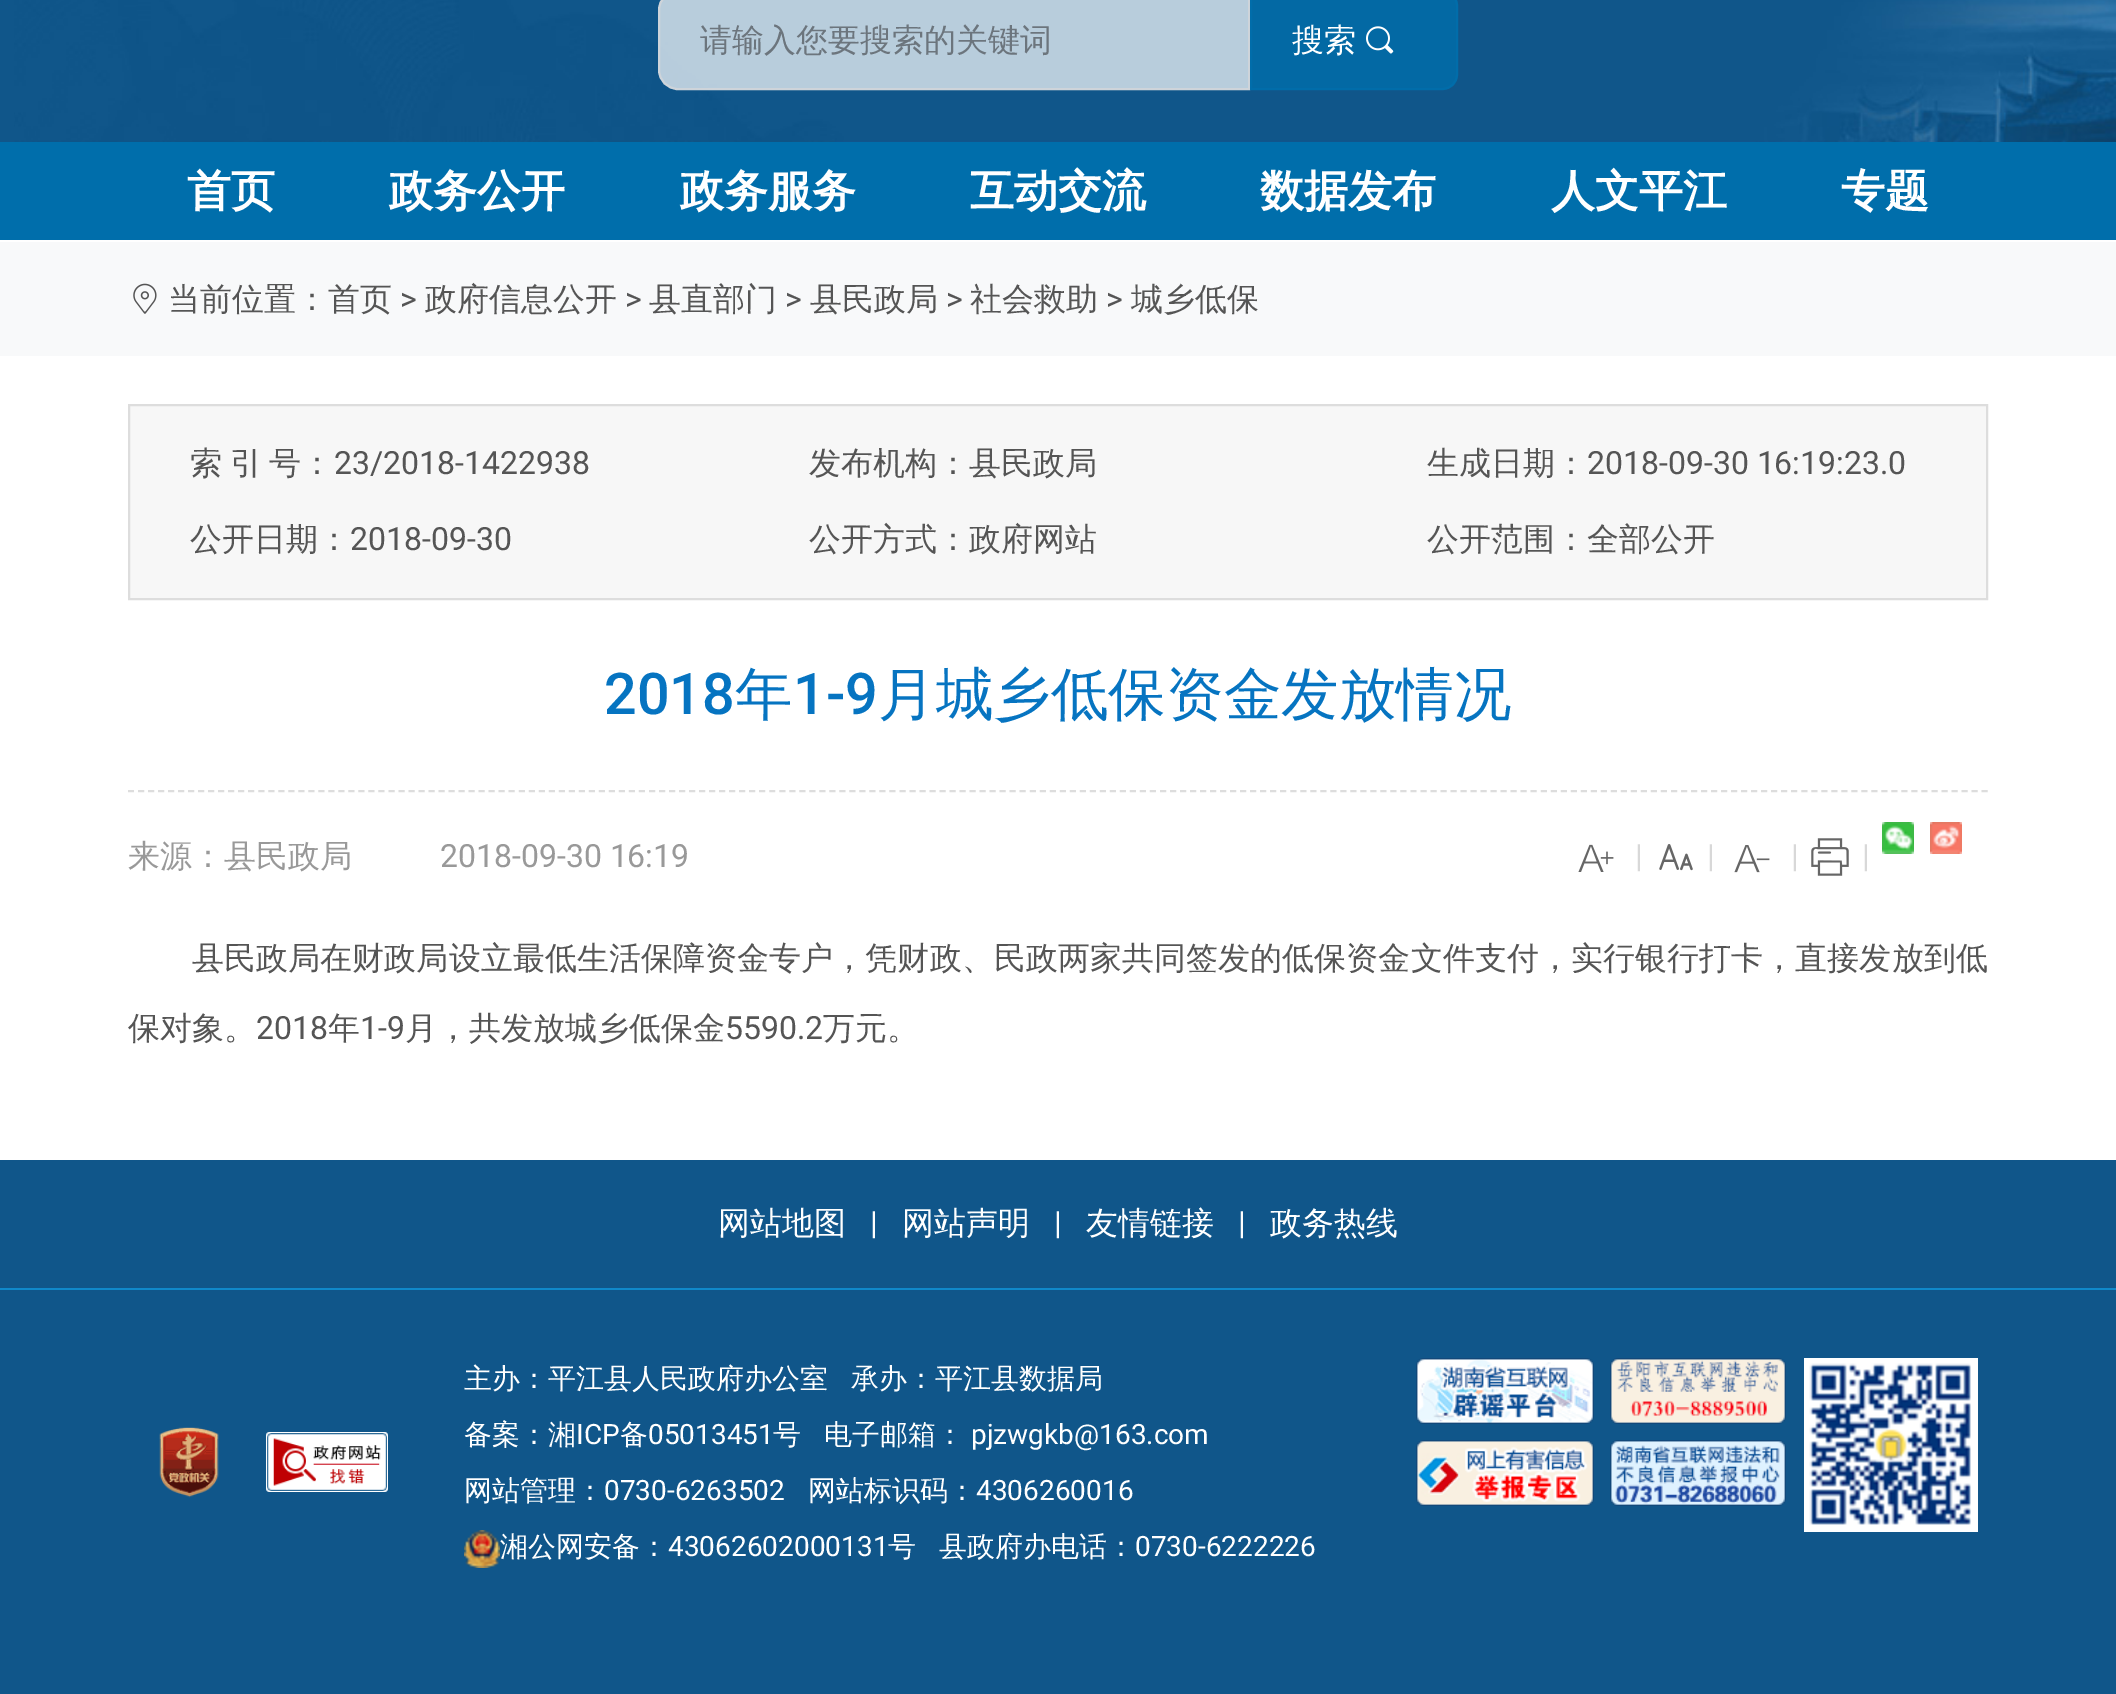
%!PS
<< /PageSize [2116 1694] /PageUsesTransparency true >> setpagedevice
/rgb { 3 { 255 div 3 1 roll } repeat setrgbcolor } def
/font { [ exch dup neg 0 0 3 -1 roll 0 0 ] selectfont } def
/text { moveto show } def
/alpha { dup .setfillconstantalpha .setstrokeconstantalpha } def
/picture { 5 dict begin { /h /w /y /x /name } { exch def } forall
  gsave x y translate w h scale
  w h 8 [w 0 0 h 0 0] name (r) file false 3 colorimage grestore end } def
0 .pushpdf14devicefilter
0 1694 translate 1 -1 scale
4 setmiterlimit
255 255 255 rgb
0 0 2116 1694 rectfill
16 86 138 rgb
0 0 14 142 rectfill
(img_01.rgb) 14 0 2102 142 picture
0.7 alpha
255 255 255 rgb
678 -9 moveto 571 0 rlineto 0 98 rlineto -571 0 rlineto -10.5 0 -19 -8.5 -19 -19 rcurveto 0 -60 rlineto 0 -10.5 8.5 -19 19 -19 rcurveto closepath fill
1 alpha
206 212 218 rgb
2 setlinewidth
678 -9 moveto 571 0 rlineto 0 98 rlineto -571 0 rlineto -10.5 0 -19 -8.5 -19 -19 rcurveto 0 -60 rlineto 0 -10.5 8.5 -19 19 -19 rcurveto closepath stroke
3 105 164 rgb
1250 -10 moveto 192 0 rlineto 9 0 16 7 16 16 rcurveto 0 68 rlineto 0 9 -7 16 -16 16 rcurveto -192 0 rlineto closepath fill
0.8 alpha
0 110 171 rgb
1251 -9 moveto 191 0 rlineto 8.5 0 15 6.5 15 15 rcurveto 0 68 rlineto 0 8.5 -6.5 15 -15 15 rcurveto -191 0 rlineto closepath stroke
1 alpha
(img_02.rgb) 1366 26 28 28 picture
0 142 2116 98 rectfill
248 249 250 rgb
0 242 2116 114 rectfill
(img_03.rgb) 133 283 24 31 picture
247 247 247 rgb
129 405 moveto 1858 0 rlineto 0 194 rlineto -1858 0 rlineto closepath gsave fill grestore
221 221 221 rgb
stroke
[6 4.02] 0 setdash
128 791 moveto 1860 0 rlineto stroke
(img_04.rgb) 1578 844 36 28 picture
(img_05.rgb) 1659 844 34 27 picture
(img_06.rgb) 1734 845 36 28 picture
(img_07.rgb) 1811 838 38 38 picture
(img_08.rgb) 1882 822 32 32 picture
(img_09.rgb) 1930 822 32 32 picture
16 86 138 rgb
0 1160 2116 534 rectfill
16 136 202 rgb
0 1288 2116 2 rectfill
(img_10.rgb) 159 1427 60 71 picture
(img_11.rgb) 266 1432 122 60 picture
(img_12.rgb) 464 1530 36 38 picture
(img_13.rgb) 1416 1358 178 66 picture
(img_14.rgb) 1610 1358 176 66 picture
(img_15.rgb) 1416 1440 178 66 picture
(img_16.rgb) 1610 1440 176 66 picture
(img_17.rgb) 1804 1358 174 174 picture
/WenQuanYiZenHei-Medium 32 font
108 117 125 rgb
(请输入您要搜索的关键词) 700 51 text
255 255 255 rgb
(搜索) 1292 51 text
/WenQuanYiZenHei-Bold 44 font
(首页) 187 206 text
(政务公开) 389 206 text
(政务服务) 680 206 text
(互动交流) 970 206 text
(数据发布) 1260 206 text
(人文平江) 1551 206 text
(专题) 1841 206 text
/WenQuanYiZenHei-Medium 32 font
85 85 85 rgb
(当前位置：) 168 310 text
(首页) 328 310 text
/Roboto-Regular 32 font
(>) 400 310 text
/WenQuanYiZenHei-Medium 32 font
(政府信息公开) 425 310 text
/Roboto-Regular 32 font
(>) 625 310 text
/WenQuanYiZenHei-Medium 32 font
(县直部门) 649 310 text
/Roboto-Regular 32 font
(>) 785 310 text
/WenQuanYiZenHei-Medium 32 font
(县民政局) 810 310 text
/Roboto-Regular 32 font
(>) 946 310 text
/WenQuanYiZenHei-Medium 32 font
(社会救助) 970 310 text
/Roboto-Regular 32 font
(>) 1106 310 text
/WenQuanYiZenHei-Medium 32 font
(城乡低保) 1131 310 text
190 474 moveto -2 0 32 (索 引 号：) widthshow
/Roboto-Regular 32 font
(23/2018-1422938) 334 474 text
/WenQuanYiZenHei-Medium 32 font
(发布机构：县民政局) 809 474 text
(生成日期：) 1427 474 text
/Roboto-Regular 32 font
(2018-09-30 16:19:23.0) 1587 474 text
/WenQuanYiZenHei-Medium 32 font
(公开日期：) 190 550 text
/Roboto-Regular 32 font
(2018-09-30) 350 550 text
/WenQuanYiZenHei-Medium 32 font
(公开方式：政府网站) 809 550 text
(公开范围：全部公开) 1427 550 text
/Roboto-Medium 57.6 font
6 116 193 rgb
(2018) 604 714 text
/WenQuanYiZenHei-Medium 57.6 font
(年) 735 714 text
/Roboto-Medium 57.6 font
(1-9) 793 714 text
/WenQuanYiZenHei-Medium 57.6 font
(月城乡低保资金发放情况) 878 714 text
/WenQuanYiZenHei-Medium 32 font
153 153 153 rgb
(来源：县民政局) 128 867 text
/Roboto-Regular 32 font
(2018-09-30 16:19) 440 867 text
216 216 216 rgb
(|) 1635 867 text
(|) 1707 867 text
(|) 1791 867 text
(|) 1862 867 text
/WenQuanYiZenHei-Medium 32 font
85 85 85 rgb
192 969 moveto 0.07 0 (县民政局在财政局设立最低生活保障资金专户，凭财政、民政两家共同签发的低保资金文件支付，实行银行打卡，直接发放到低) ashow
(保对象。) 128 1039 text
/Roboto-Regular 32 font
(2018) 256 1039 text
/WenQuanYiZenHei-Medium 32 font
(年) 328 1039 text
/Roboto-Regular 32 font
(1-9) 360 1039 text
/WenQuanYiZenHei-Medium 32 font
(月，共发放城乡低保金) 405 1039 text
/Roboto-Regular 32 font
(5590.2) 725 1039 text
/WenQuanYiZenHei-Medium 32 font
(万元。) 823 1039 text
255 255 255 rgb
(网站地图) 718 1234 text
/Roboto-Regular 32 font
(|) 870 1234 text
/WenQuanYiZenHei-Medium 32 font
(网站声明) 902 1234 text
/Roboto-Regular 32 font
(|) 1054 1234 text
/WenQuanYiZenHei-Medium 32 font
(友情链接) 1086 1234 text
/Roboto-Regular 32 font
(|) 1238 1234 text
/WenQuanYiZenHei-Medium 32 font
(政务热线) 1270 1234 text
/WenQuanYiZenHei-Medium 28 font
(主办：平江县人民政府办公室) 464 1388 text
(承办：平江县数据局) 851 1388 text
(备案：湘) 464 1444 text
/Roboto-Regular 28 font
(ICP) 576 1444 text
/WenQuanYiZenHei-Medium 28 font
(备) 620 1444 text
/Roboto-Regular 28 font
(05013451) 648 1444 text
/WenQuanYiZenHei-Medium 28 font
(号) 773 1444 text
(电子邮箱：) 824 1444 text
/Roboto-Regular 28 font
(pjzwgkb@163.com) 971 1444 text
/WenQuanYiZenHei-Medium 28 font
(网站管理：) 464 1500 text
/Roboto-Regular 28 font
(0730-6263502) 604 1500 text
/WenQuanYiZenHei-Medium 28 font
(网站标识码：) 808 1500 text
/Roboto-Regular 28 font
(4306260016) 976 1500 text
/WenQuanYiZenHei-Medium 28 font
(湘公网安备：) 500 1556 text
/Roboto-Regular 28 font
(43062602000131) 668 1556 text
/WenQuanYiZenHei-Medium 28 font
(号) 888 1556 text
(县政府办电话：) 939 1556 text
/Roboto-Regular 28 font
(0730-6222226) 1135 1556 text
.poppdf14devicefilter showpage
